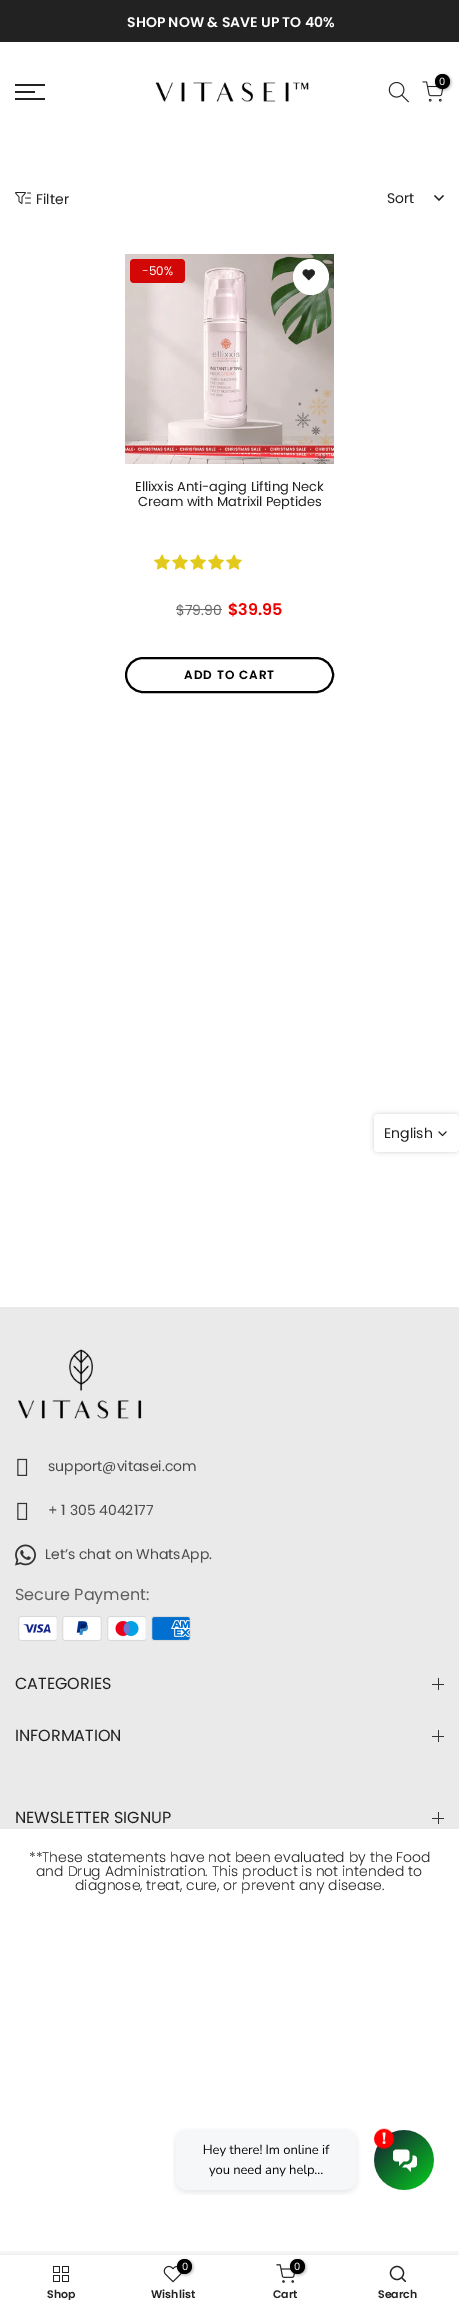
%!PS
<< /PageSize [459 2310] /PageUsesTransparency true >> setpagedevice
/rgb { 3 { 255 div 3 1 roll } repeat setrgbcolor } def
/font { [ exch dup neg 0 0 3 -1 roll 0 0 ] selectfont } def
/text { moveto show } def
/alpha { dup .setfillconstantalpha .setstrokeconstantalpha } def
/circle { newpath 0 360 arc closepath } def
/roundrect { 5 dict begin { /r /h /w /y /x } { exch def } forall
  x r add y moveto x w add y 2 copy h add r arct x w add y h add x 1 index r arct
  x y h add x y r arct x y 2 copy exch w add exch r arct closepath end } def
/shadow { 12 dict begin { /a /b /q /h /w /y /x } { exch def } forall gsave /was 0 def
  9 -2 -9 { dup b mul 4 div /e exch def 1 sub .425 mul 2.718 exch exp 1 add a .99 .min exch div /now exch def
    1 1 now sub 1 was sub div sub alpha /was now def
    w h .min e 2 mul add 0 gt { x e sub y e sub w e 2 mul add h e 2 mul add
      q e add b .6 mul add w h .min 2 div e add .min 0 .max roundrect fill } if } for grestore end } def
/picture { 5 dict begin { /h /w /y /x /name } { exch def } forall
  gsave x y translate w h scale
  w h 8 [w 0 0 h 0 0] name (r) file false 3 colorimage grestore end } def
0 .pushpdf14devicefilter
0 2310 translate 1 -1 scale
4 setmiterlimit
255 255 255 rgb
0 0 459 2310 rectfill
34 34 34 rgb
0 0 459 42 rectfill
(img_01.rgb) 388 81 21 22 picture
(img_02.rgb) 422 81 22 21 picture
0 0 0 rgb
436 75 15 15 7.5 1.5 0.3 shadow
442.5 81.5 7.5 circle fill
34 34 34 rgb
15 84 30 2 rectfill
15 91 20 2 rectfill
15 98 30 2 rectfill
(img_03.rgb) 155 82 154 20 picture
(img_04.rgb) 15 192 16 12 picture
1.1 setlinewidth
2 setlinecap
443 196 moveto -4 4 rlineto -4 -4 rlineto stroke
(img_05.rgb) 125 254 209 210 picture
212 7 7 rgb
130 259 55 24 4 roundrect fill
255 255 255 rgb
311 277 18 circle fill
(img_06.rgb) 302 269 13 12 picture
(img_07.rgb) 154 554 16 16 picture
(img_07.rgb) 172 554 16 16 picture
(img_07.rgb) 190 554 16 16 picture
(img_07.rgb) 208 554 16 16 picture
(img_07.rgb) 226 554 16 16 picture
105 105 105 rgb
176 609 46 1 rectfill
0 0 0 rgb
2 setlinewidth
0 setlinecap
126 658 207 34 17 roundrect stroke
234 234 234 rgb
0 1307 459 522 rectfill
(img_08.rgb) 18 1349 124 70 picture
(img_09.rgb) 17 1458 11 18 picture
(img_09.rgb) 17 1502 11 18 picture
(img_10.rgb) 15 1544 21 22 picture
(img_11.rgb) 18 1616 39 25 picture
(img_12.rgb) 62 1616 40 25 picture
(img_13.rgb) 107 1616 39 25 picture
(img_14.rgb) 151 1616 40 25 picture
51 51 51 rgb
438 1678 1 12 rectfill
432 1684 12 1 rectfill
438 1730 1 12 rectfill
432 1736 12 1 rectfill
438 1812 1 12 rectfill
432 1818 12 1 rectfill
0 0 0 rgb
374 1114 85 38 4 2.5 0.17 shadow
255 255 255 rgb
374 1114 85 38 4 roundrect fill
34 34 34 rgb
0.9 setlinewidth
2 setlinecap
446 1132 moveto -3.5 3.5 rlineto -3.5 -3.5 rlineto stroke
(img_15.rgb) 173 2128 261 67 picture
gsave
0 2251 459 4 rectclip
0 0 0 rgb
0 2255 459 55 0 4.5 0.12 shadow
grestore
(img_16.rgb) 53 2266 16 16 picture
(img_17.rgb) 163 2265 19 18 picture
0 0 0 rgb
178 2260 15 15 7.5 1.5 0.3 shadow
184.5 2266.5 7.5 circle fill
(img_18.rgb) 276 2264 19 19 picture
291 2260 15 15 7.5 1.5 0.3 shadow
297.5 2266.5 7.5 circle fill
34 34 34 rgb
1.2 setlinewidth
0 setlinecap
397 2273 6.5 circle stroke
1 setlinecap
1 setlinejoin
405.5 2281.5 moveto -3.5 -3.5 rlineto stroke
/Poppins-SemiBold 14 font
255 255 255 rgb
(SHOP NOW & SAVE UP TO 40%) 127 27 text
/Poppins-Regular 10 font
(0) 439 85 text
/Poppins-Regular 14 font
34 34 34 rgb
(Filter) 36 204 text
(Sort) 387 203 text
/Poppins-Regular 12 font
255 255 255 rgb
(-50%) 142 275 text
/Poppins-Regular 13 font
34 34 34 rgb
(Ellixxis Anti-aging Lifting Neck) 135 491 text
(Cream with Matrixil Peptides) 138 506 text
/Poppins-Regular 14 font
105 105 105 rgb
($79.90) 176 615 text
/Poppins-SemiBold 16 font
236 1 1 rgb
($39.95) 228 615 text
/Poppins-SemiBold 12 font
0 0 0 rgb
184 679 moveto 1 0 (ADD TO CART) ashow
/Poppins-Regular 14 font
75 75 75 rgb
(support@vitasei.com) 48 1471 text
(+ 1 305 4042177) 48 1515 text
(Let’s chat on WhatsApp.) 45 1559 text
/Poppins-Regular 16 font
94 94 94 rgb
(Secure Payment:) 15 1600 text
34 34 34 rgb
(CATEGORIES) 15 1689 text
(INFORMATION) 15 1741 text
(NEWSLETTER SIGNUP) 15 1823 text
/Poppins-Light 14 font
(**These statements have not been evaluated by the Food) 29 1862 text
(and Drug Administration. This product is not intended to) 36 1876 text
(diagnose, treat, cure, or prevent any disease.) 75 1890 text
/Poppins-Regular 14 font
(English) 384 1138 text
gsave
15 2289 92 11 rectclip
/Poppins-SemiBold 11 font
(Shop) 47 2298 text
grestore
/Poppins-Regular 10 font
255 255 255 rgb
(0) 182 2270 text
/Poppins-SemiBold 11 font
34 34 34 rgb
(Wishlist) 151 2298 text
/Poppins-Regular 10 font
255 255 255 rgb
(0) 294 2270 text
/Poppins-SemiBold 11 font
34 34 34 rgb
(Cart) 273 2298 text
(Search) 378 2298 text
.poppdf14devicefilter showpage
